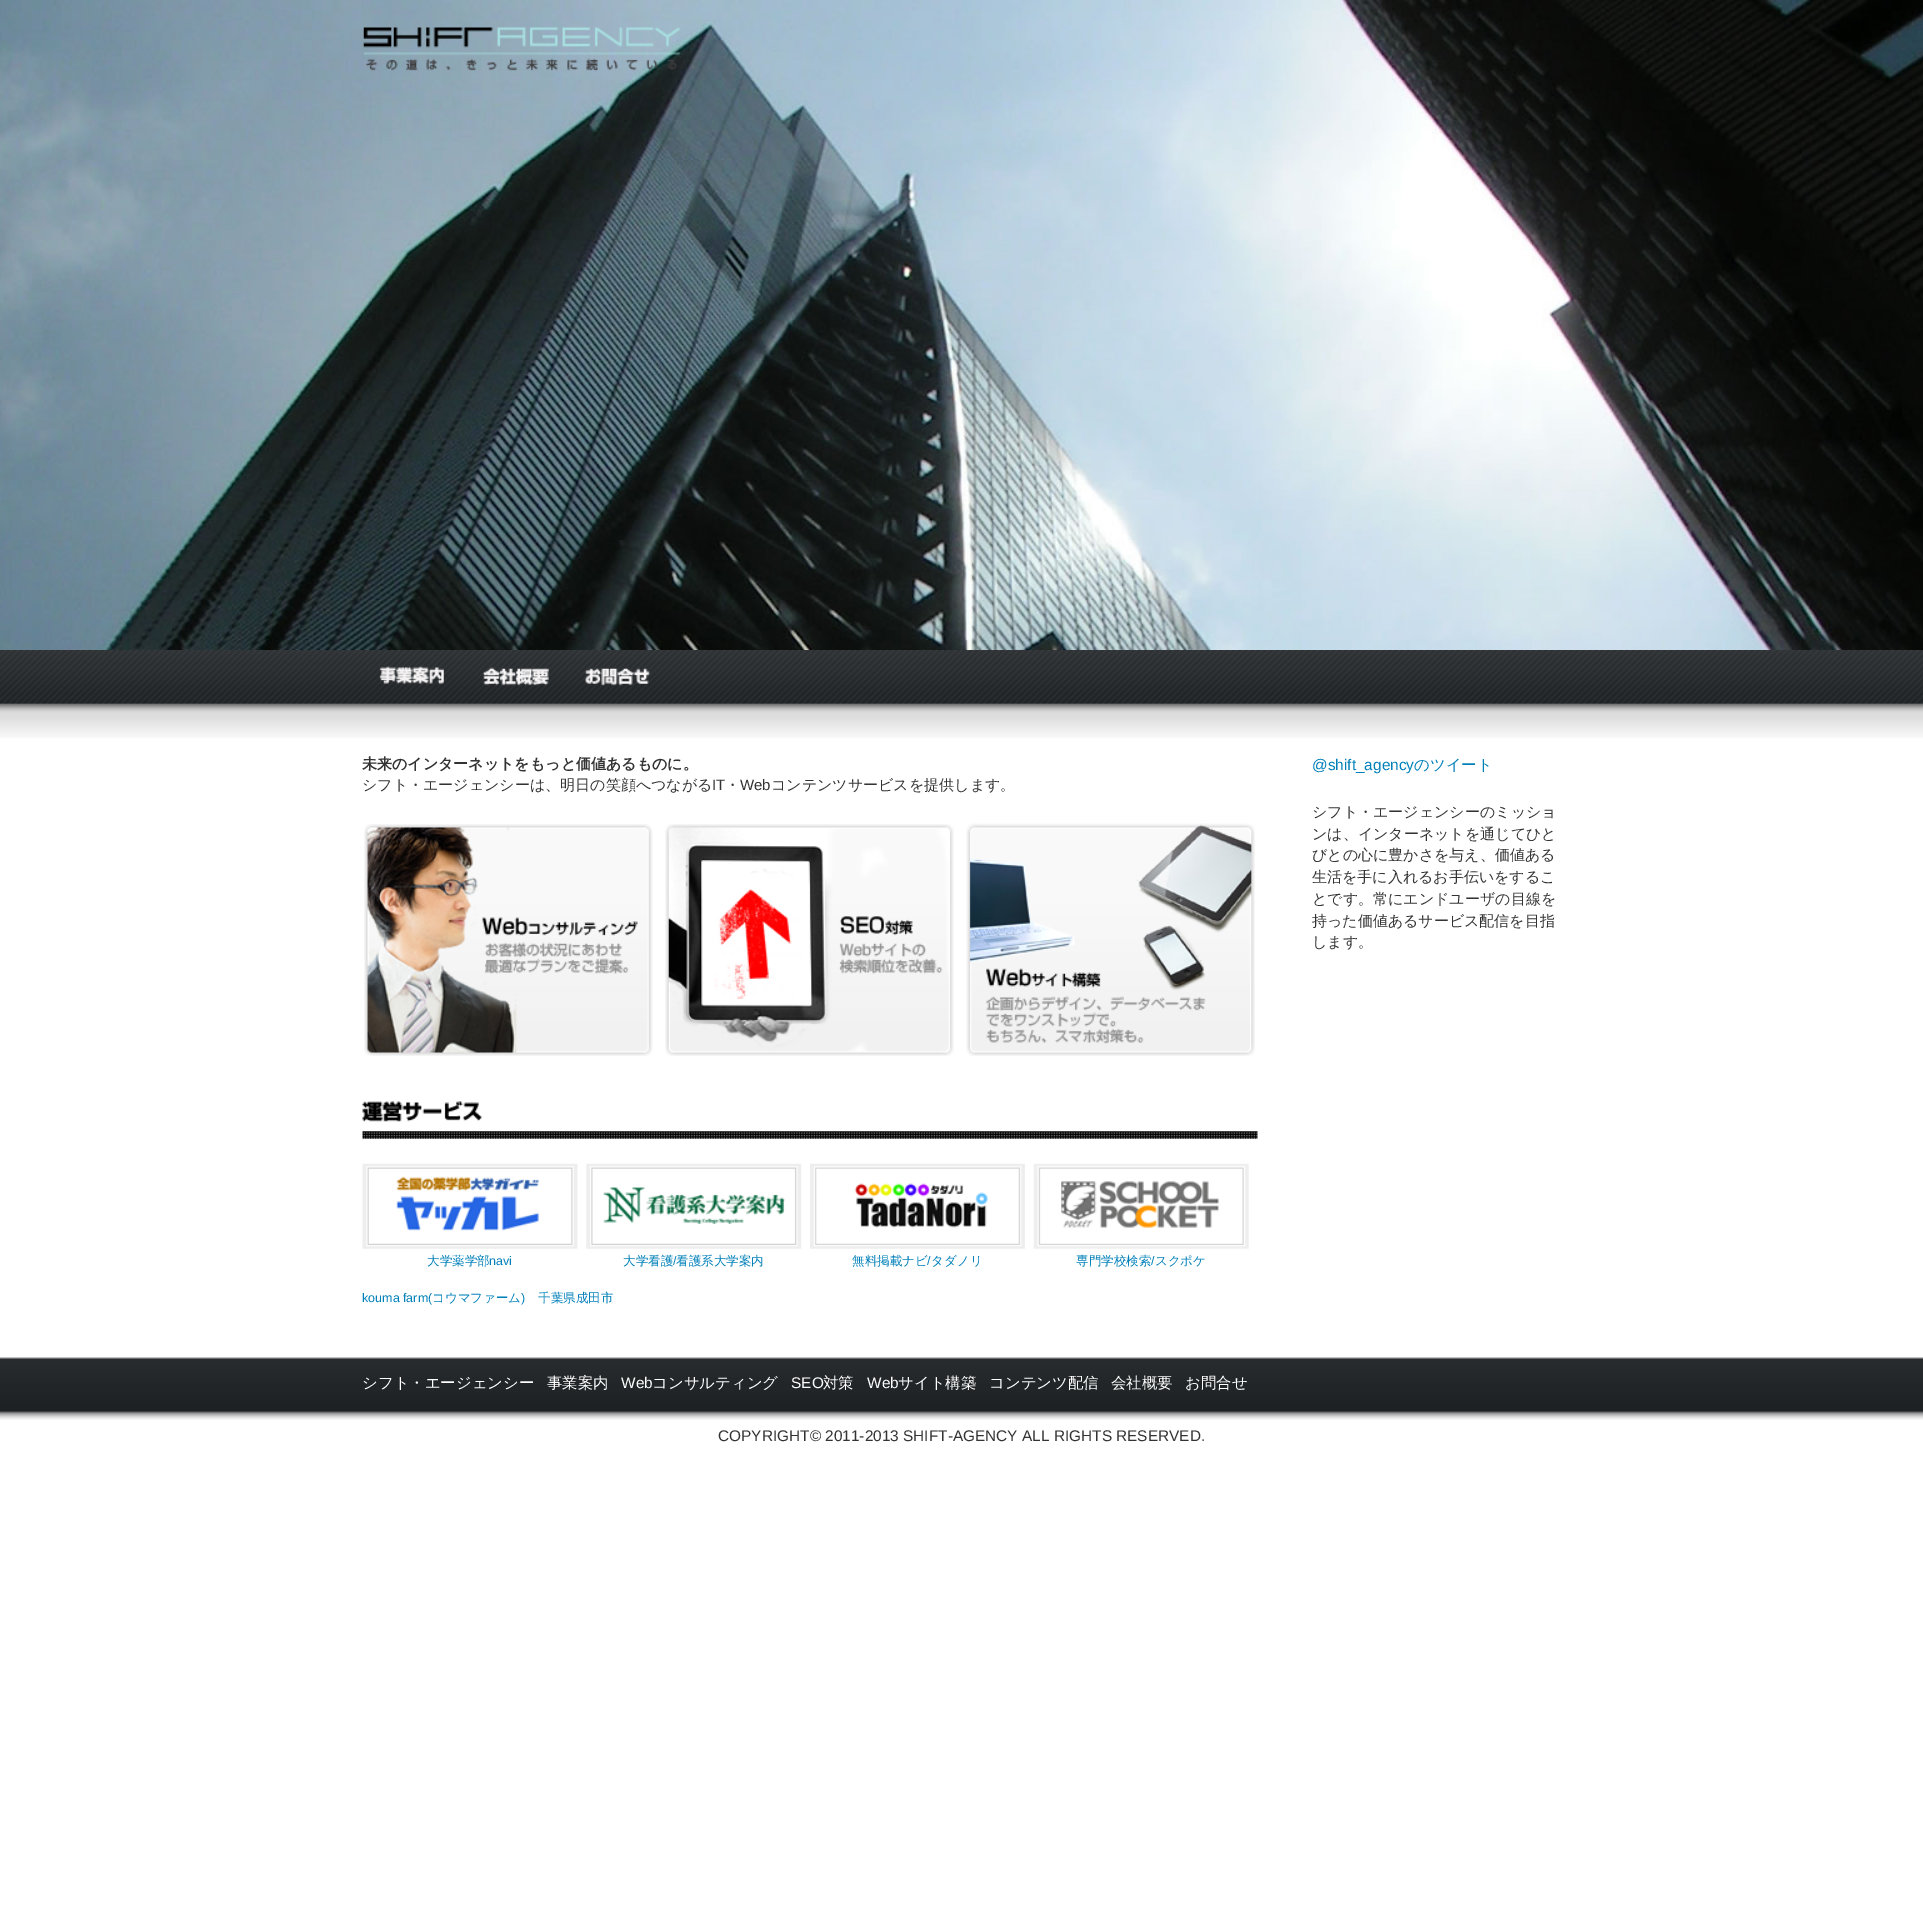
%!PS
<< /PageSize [1923 1929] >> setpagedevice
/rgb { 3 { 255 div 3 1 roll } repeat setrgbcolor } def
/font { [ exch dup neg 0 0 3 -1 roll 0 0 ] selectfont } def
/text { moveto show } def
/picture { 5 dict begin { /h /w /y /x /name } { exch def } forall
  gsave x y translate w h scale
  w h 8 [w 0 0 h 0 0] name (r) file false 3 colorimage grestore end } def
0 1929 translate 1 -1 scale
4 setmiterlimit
255 255 255 rgb
0 0 1923 1929 rectfill
(img_01.rgb) 0 0 1923 650 picture
(img_02.rgb) 363 27 318 44 picture
(img_03.rgb) 0 650 1923 88 picture
(img_04.rgb) 379 666 65 18 picture
(img_05.rgb) 483 667 66 19 picture
(img_06.rgb) 584 668 67 18 picture
(img_07.rgb) 364 824 289 232 picture
(img_08.rgb) 665 824 289 232 picture
(img_09.rgb) 966 823 289 233 picture
(img_10.rgb) 362 1131 896 8 picture
(img_11.rgb) 362 1101 121 21 picture
(img_12.rgb) 362 1163 216 86 picture
(img_13.rgb) 586 1163 216 86 picture
(img_14.rgb) 810 1163 215 86 picture
(img_15.rgb) 1033 1163 216 86 picture
(img_16.rgb) 0 1357 1923 63 picture
/WenQuanYiZenHei-Bold 15 font
51 51 51 rgb
(未来のインターネットをもっと価値あるものに。) 362 769 text
/WenQuanYiZenHei-Medium 15 font
(シフト・エージェンシーは、明日の笑顔へつながる) 362 790 text
/LiberationSans-Regular 15 font
(IT) 712 790 text
/WenQuanYiZenHei-Medium 15 font
(・) 725 790 text
/LiberationSans-Regular 15 font
(Web) 740 790 text
/WenQuanYiZenHei-Medium 15 font
(コンテンツサービスを提供します。) 771 790 text
/WenQuanYiZenHei-Medium 12.5 font
0 128 185 rgb
(大学薬学部) 427 1265 text
/LiberationSans-Regular 12.5 font
(navi) 489 1265 text
/WenQuanYiZenHei-Medium 12.5 font
(大学看護) 623 1265 text
/LiberationSans-Regular 12.5 font
(/) 673 1265 text
/WenQuanYiZenHei-Medium 12.5 font
(看護系大学案内) 676 1265 text
(無料掲載ナビ タダノリ) 852 1265 text
/LiberationSans-Regular 12.5 font
(/) 927 1265 text
/WenQuanYiZenHei-Medium 12.5 font
(専門学校検索 スクポケ) 1076 1265 text
/LiberationSans-Regular 12.5 font
(/) 1151 1265 text
(kouma farm\() 362 1302 text
/WenQuanYiZenHei-Medium 12.5 font
(コウマファーム) 432 1302 text
/LiberationSans-Regular 12.5 font
(\)) 521 1302 text
/WenQuanYiZenHei-Medium 12.5 font
(千葉県成田市) 538 1302 text
/LiberationSans-Regular 15.4 font
(@shift_agency) 1312 770 text
/WenQuanYiZenHei-Medium 15.4 font
(のツイート) 1414 770 text
/WenQuanYiZenHei-Medium 15 font
51 51 51 rgb
(シフト・エージェンシーのミッショ) 1312 817 text
(ンは、インターネットを通じてひと) 1312 839 text
(びとの心に豊かさを与え、価値ある) 1312 860 text
(生活を手に入れるお手伝いをするこ) 1312 882 text
(とです。常にエンドユーザの目線を) 1312 904 text
(持った価値あるサービス配信を目指) 1312 926 text
(します。) 1312 947 text
/WenQuanYiZenHei-Medium 15.4 font
255 255 255 rgb
(シフト・エージェンシー) 362 1388 text
(事業案内) 547 1388 text
/LiberationSans-Regular 15.4 font
(Web) 621 1388 text
/WenQuanYiZenHei-Medium 15.4 font
(コンサルティング) 652 1388 text
/LiberationSans-Regular 15.4 font
(SEO) 791 1388 text
/WenQuanYiZenHei-Medium 15.4 font
(対策) 823 1388 text
/LiberationSans-Regular 15.4 font
(Web) 867 1388 text
/WenQuanYiZenHei-Medium 15.4 font
(サイト構築) 898 1388 text
(コンテンツ配信) 989 1388 text
(会社概要) 1111 1388 text
(お問合せ) 1185 1388 text
/LiberationSans-Regular 15.4 font
51 51 51 rgb
(COPYRIGHT© 2011-2013 SHIFT-AGENCY ALL RIGHTS RESERVED.) 718 1441 text
showpage
